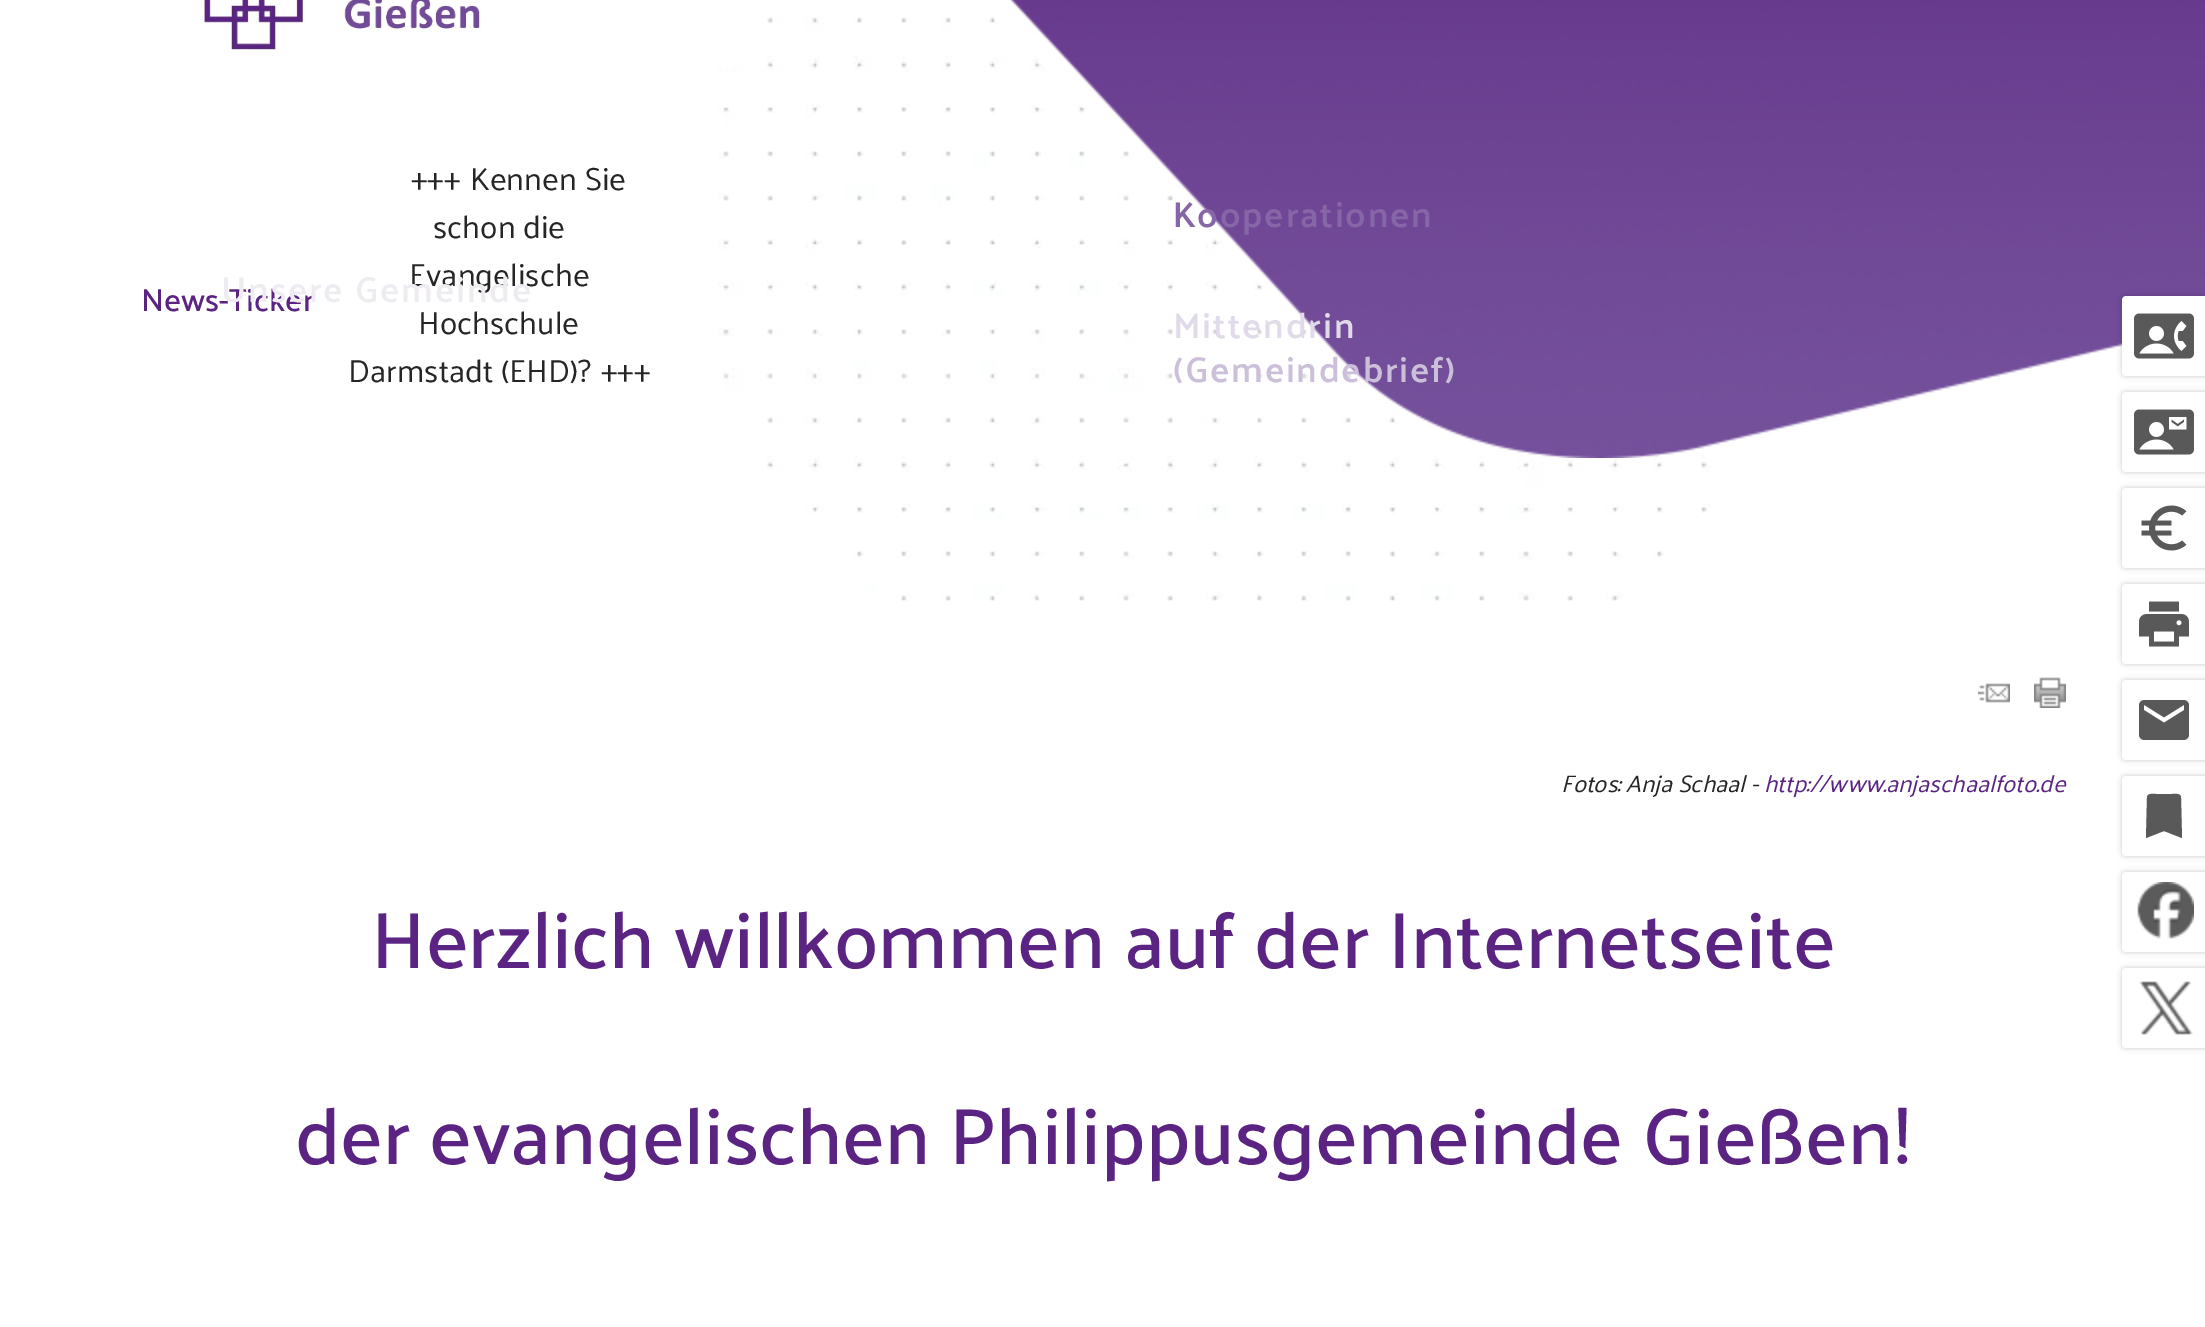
%!PS
<< /PageSize [2205 1327] /PageUsesTransparency true >> setpagedevice
/rgb { 3 { 255 div 3 1 roll } repeat setrgbcolor } def
/font { [ exch dup neg 0 0 3 -1 roll 0 0 ] selectfont } def
/text { moveto show } def
/alpha { dup .setfillconstantalpha .setstrokeconstantalpha } def
/roundrect { 5 dict begin { /r /h /w /y /x } { exch def } forall
  x r add y moveto x w add y 2 copy h add r arct x w add y h add x 1 index r arct
  x y h add x y r arct x y 2 copy exch w add exch r arct closepath end } def
/shadow { 12 dict begin { /a /b /q /h /w /y /x } { exch def } forall gsave /was 0 def
  9 -2 -9 { dup b mul 4 div /e exch def 1 sub .425 mul 2.718 exch exp 1 add a .99 .min exch div /now exch def
    1 1 now sub 1 was sub div sub alpha /was now def
    w h .min e 2 mul add 0 gt { x e sub y e sub w e 2 mul add h e 2 mul add
      q e add b .6 mul add w h .min 2 div e add .min 0 .max roundrect fill } if } for grestore end } def
/picture { 5 dict begin { /h /w /y /x /name } { exch def } forall
  gsave x y translate w h scale
  w h 8 [w 0 0 h 0 0] name (r) file false 3 colorimage grestore end } def
0 .pushpdf14devicefilter
0 1327 translate 1 -1 scale
4 setmiterlimit
255 255 255 rgb
0 0 2205 1327 rectfill
(img_01.rgb) 718 16 1047 585 picture
(img_02.rgb) 204 0 530 68 picture
(img_03.rgb) 1009 0 1196 458 picture
(img_04.rgb) 1978 683 32 20 picture
(img_05.rgb) 2034 677 32 31 picture
0 0 0 rgb
2122 296 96 80 4 3 0.2 shadow
255 255 255 rgb
2126 296 moveto 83 0 rlineto 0 80 rlineto -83 0 rlineto -2 0 -4 -2 -4 -4 rcurveto 0 -72 rlineto 0 -2 2 -4 4 -4 rcurveto closepath fill
(img_06.rgb) 2134 313 60 46 picture
0 0 0 rgb
2122 392 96 80 4 3 0.2 shadow
255 255 255 rgb
2126 392 moveto 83 0 rlineto 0 80 rlineto -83 0 rlineto -2 0 -4 -2 -4 -4 rcurveto 0 -72 rlineto 0 -2 2 -4 4 -4 rcurveto closepath fill
(img_07.rgb) 2134 409 60 46 picture
0 0 0 rgb
2122 488 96 80 4 3 0.2 shadow
255 255 255 rgb
2126 488 moveto 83 0 rlineto 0 80 rlineto -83 0 rlineto -2 0 -4 -2 -4 -4 rcurveto 0 -72 rlineto 0 -2 2 -4 4 -4 rcurveto closepath fill
(img_08.rgb) 2141 505 46 46 picture
0 0 0 rgb
2122 584 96 80 4 3 0.2 shadow
255 255 255 rgb
2126 584 moveto 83 0 rlineto 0 80 rlineto -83 0 rlineto -2 0 -4 -2 -4 -4 rcurveto 0 -72 rlineto 0 -2 2 -4 4 -4 rcurveto closepath fill
(img_09.rgb) 2139 601 50 46 picture
0 0 0 rgb
2122 680 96 80 4 3 0.2 shadow
255 255 255 rgb
2126 680 moveto 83 0 rlineto 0 80 rlineto -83 0 rlineto -2 0 -4 -2 -4 -4 rcurveto 0 -72 rlineto 0 -2 2 -4 4 -4 rcurveto closepath fill
(img_10.rgb) 2139 700 50 40 picture
0 0 0 rgb
2122 776 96 80 4 3 0.2 shadow
255 255 255 rgb
2126 776 moveto 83 0 rlineto 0 80 rlineto -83 0 rlineto -2 0 -4 -2 -4 -4 rcurveto 0 -72 rlineto 0 -2 2 -4 4 -4 rcurveto closepath fill
89 89 89 rgb
2146 838 moveto 1 -40 rlineto 0 -5 5 -4 9 -4 rcurveto 16 0 rlineto 4 0 9 -1 9 4 rcurveto 1 40 rlineto -18 -7 rlineto closepath fill
0 0 0 rgb
2122 872 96 80 4 3 0.2 shadow
255 255 255 rgb
2126 872 moveto 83 0 rlineto 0 80 rlineto -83 0 rlineto -2 0 -4 -2 -4 -4 rcurveto 0 -72 rlineto 0 -2 2 -4 4 -4 rcurveto closepath fill
(img_11.rgb) 2137 882 57 57 picture
0 0 0 rgb
2122 968 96 80 4 3 0.2 shadow
255 255 255 rgb
2126 968 moveto 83 0 rlineto 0 80 rlineto -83 0 rlineto -2 0 -4 -2 -4 -4 rcurveto 0 -72 rlineto 0 -2 2 -4 4 -4 rcurveto closepath fill
(img_12.rgb) 2139 981 54 54 picture
/Palanquin-Medium 32 font
92 36 130 rgb
(News-Ticker) 141 311 text
/Palanquin-Regular 32 font
37 37 37 rgb
(+++) 411 190 text
(Kennen Sie) 470 190 text
(schon die) 433 238 text
(Evangelische) 409 286 text
(Hochschule) 418 334 text
(Darmstadt \(EHD\)?) 348 382 text
(+++) 601 382 text
/Palanquin-SemiBold 36 font
135 102 167 rgb
1173 227 moveto 1.75 0 (Kooperationen) ashow
239 236 241 rgb
221 302 moveto 1.75 0 (Unsere Gemeinde) ashow
225 218 233 rgb
1173 338 moveto 1.75 0 (Mittendrin) ashow
204 191 218 rgb
1173 382 moveto 1.75 0 (\(Gemeindebrief\)) ashow
/Palanquin-Italic 24 font
37 37 37 rgb
(Fotos: Anja Schaal -) 1561 792 text
92 36 130 rgb
(http://www.anjaschaalfoto.de) 1764 792 text
/Palanquin-Medium 80 font
(Herzlich willkommen auf der Internetseite) 371 968 text
(der evangelischen Philippusgemeinde Gießen!) 295 1164 text
.poppdf14devicefilter showpage
